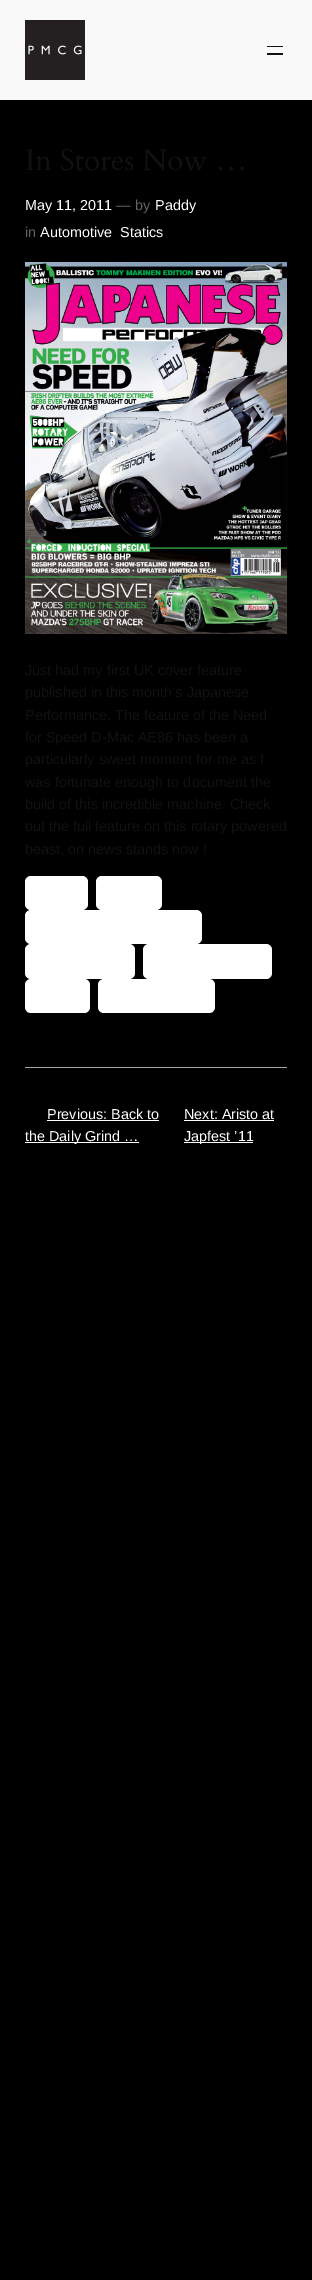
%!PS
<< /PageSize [312 2280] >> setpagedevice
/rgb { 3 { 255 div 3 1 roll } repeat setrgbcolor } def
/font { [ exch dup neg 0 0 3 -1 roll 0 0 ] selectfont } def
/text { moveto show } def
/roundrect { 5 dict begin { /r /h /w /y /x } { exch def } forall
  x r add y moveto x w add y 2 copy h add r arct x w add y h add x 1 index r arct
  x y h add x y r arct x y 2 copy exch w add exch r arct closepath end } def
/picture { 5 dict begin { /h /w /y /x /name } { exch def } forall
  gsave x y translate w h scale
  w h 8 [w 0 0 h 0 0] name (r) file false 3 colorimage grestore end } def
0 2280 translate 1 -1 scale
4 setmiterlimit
0 0 0 rgb
0 0 312 2280 rectfill
249 249 249 rgb
0 0 312 100 rectfill
(img_01.rgb) 25 20 60 60 picture
17 17 17 rgb
267 46 16 1 rectfill
267 53 16 2 rectfill
(img_02.rgb) 26 149 218 22 picture
(img_03.rgb) 25 262 262 372 picture
255 255 255 rgb
25 876 63 34 6 roundrect fill
96 876 66 34 6 roundrect fill
25 910 177 34 6 roundrect fill
25 944 110 35 6 roundrect fill
143 944 129 35 6 roundrect fill
25 979 65 34 6 roundrect fill
98 979 117 34 6 roundrect fill
164 164 164 rgb
25 1067 262 1 rectfill
255 255 255 rgb
47 1120 112 1 rectfill
25 1142 114 1 rectfill
184 1120 90 1 rectfill
184 1142 69 1 rectfill
/LiberationSans-Regular 14.4 font
(May 11, 2011) 25 210 text
99 99 99 rgb
(—) 116 210 text
(by) 135 210 text
255 255 255 rgb
(Paddy) 155 210 text
99 99 99 rgb
(in) 25 237 text
255 255 255 rgb
(Automotive) 40 237 text
(Statics) 120 237 text
17 17 17 rgb
(Just had my first UK cover feature) 25 675 text
(published in this month’s Japanese) 25 697 text
(Performance. The feature of the Need) 25 720 text
(for Speed D-Mac AE86 has been a) 25 742 text
(particularly sweet moment for me as I) 25 764 text
(was fortunate enough to document the) 25 787 text
(build of this incredible machine. Check) 25 809 text
(out the full feature on this rotary powered) 25 831 text
(beast, on news stands now !) 25 854 text
255 255 255 rgb
(Previous: Back to) 47 1119 text
(the Daily Grind …) 25 1141 text
(Next: Aristo at) 184 1119 text
(Japfest ’11) 184 1141 text
showpage
